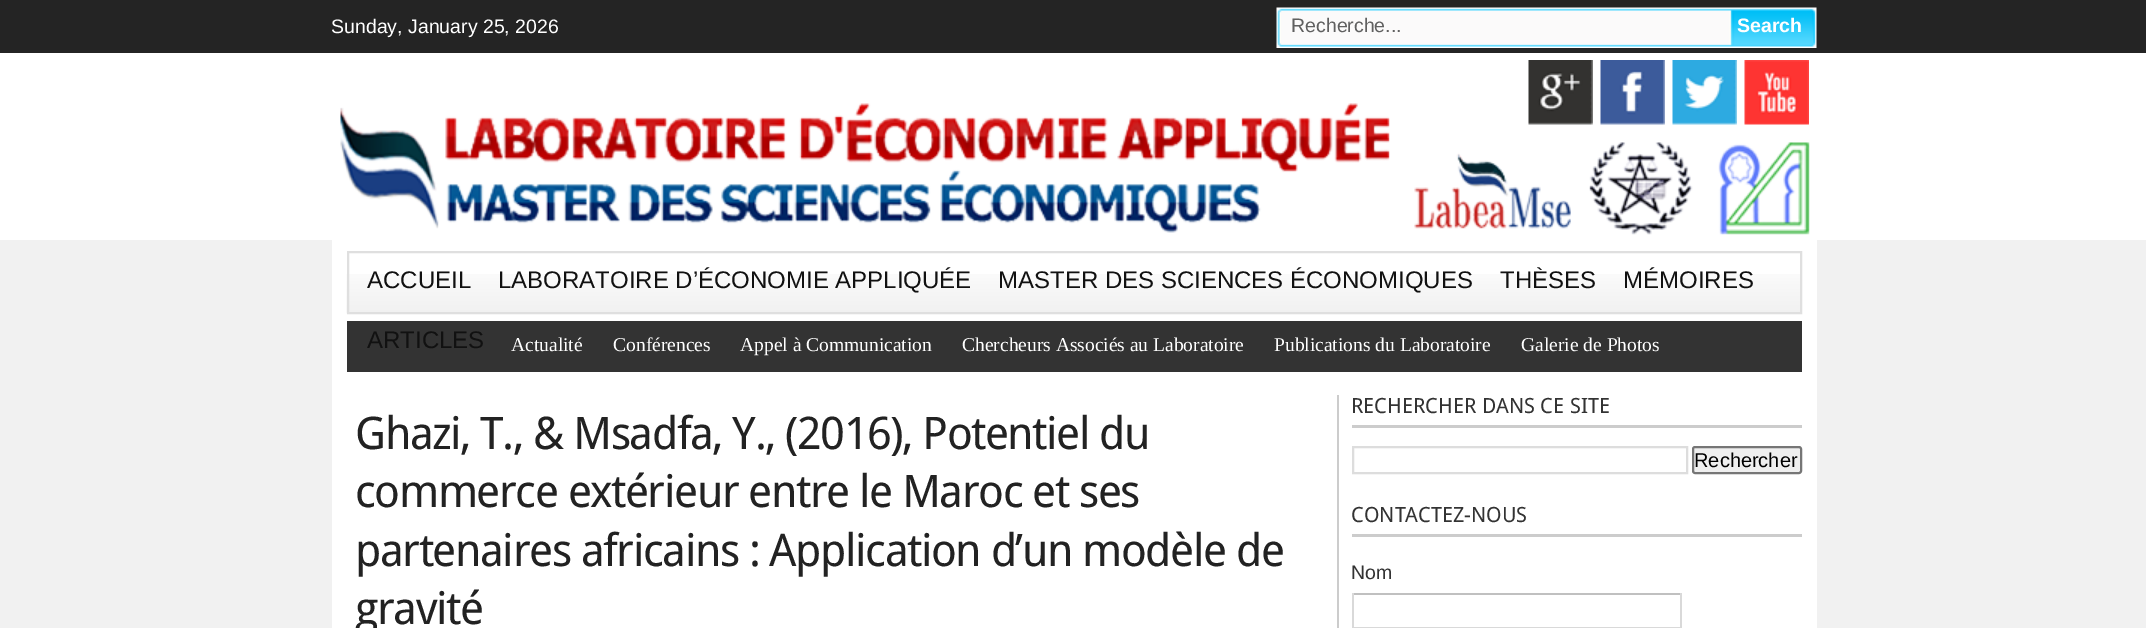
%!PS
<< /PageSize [2146 628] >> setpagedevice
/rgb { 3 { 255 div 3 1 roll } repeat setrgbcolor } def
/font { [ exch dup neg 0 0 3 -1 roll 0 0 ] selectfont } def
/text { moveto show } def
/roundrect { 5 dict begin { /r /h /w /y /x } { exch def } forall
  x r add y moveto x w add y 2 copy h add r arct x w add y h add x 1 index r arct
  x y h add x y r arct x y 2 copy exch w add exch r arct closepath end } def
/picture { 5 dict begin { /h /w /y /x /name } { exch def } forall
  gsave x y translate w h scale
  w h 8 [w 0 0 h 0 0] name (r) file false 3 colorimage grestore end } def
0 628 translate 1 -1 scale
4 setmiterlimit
241 241 241 rgb
0 0 2146 628 rectfill
36 36 36 rgb
0 0 2146 53 rectfill
(img_01.rgb) 1276 7 541 41 picture
255 255 255 rgb
0 53 2146 187 rectfill
(img_06.rgb) 340 103 1470 132 picture
(img_02.rgb) 1528 60 65 65 picture
(img_03.rgb) 1600 60 65 65 picture
(img_04.rgb) 1672 60 65 65 picture
(img_05.rgb) 1744 60 65 65 picture
332 240 1485 388 rectfill
(img_07.rgb) 346 274 1454 40 picture
223 223 223 rgb
2 setlinewidth
348 252 1453 61 rectstroke
51 51 51 rgb
347 321 1455 51 rectfill
204 204 204 rgb
1337 395 2 233 rectfill
1352 425 450 3 rectfill
221 221 221 rgb
1353 447 334 26 rectstroke
239 239 239 rgb
1693 447 108 26 2 roundrect gsave fill grestore
118 118 118 rgb
stroke
204 204 204 rgb
1352 534 450 3 rectfill
192 192 192 rgb
1352 593 330 2 rectfill
217 217 217 rgb
1680 593 2 35 rectfill
1352 627 330 1 rectfill
1352 593 2 35 rectfill
/LiberationSans-Regular 19.5 font
255 255 255 rgb
(Sunday, January 25, 2026) 331 33 text
96 96 96 rgb
(Recherche...) 1291 32 text
/LiberationSans-Bold 19.5 font
255 255 255 rgb
(Search) 1737 32 text
/LiberationSans-Regular 24 font
17 17 17 rgb
(ACCUEIL) 367 288 text
(LABORATOIRE D’ÉCONOMIE APPLIQUÉE) 498 288 text
(MASTER DES SCIENCES ÉCONOMIQUES) 998 288 text
(THÈSES) 1500 288 text
(MÉMOIRES) 1623 288 text
(ARTICLES) 367 348 text
/LiberationSerif-Regular 19.5 font
255 255 255 rgb
(Actualité) 511 351 text
(Conférences) 613 351 text
(Appel à Communication) 740 351 text
(Chercheurs Associés au Laboratoire) 962 351 text
(Publications du Laboratoire) 1274 351 text
(Galerie de Photos) 1521 351 text
/DroidSans-Regular 45 font
34 34 34 rgb
355 449 moveto -1.5 0 (Ghazi, T., & Msadfa, Y., \(2016\), Potentiel du) ashow
355 507 moveto -1.5 0 (commerce extérieur entre le Maroc et ses) ashow
355 566 moveto -1.5 0 (partenaires africains : Application d’un modèle de) ashow
355 624 moveto -1.5 0 (gravité) ashow
/DroidSans-Regular 21 font
51 51 51 rgb
(RECHERCHER DANS CE SITE) 1351 413 text
/LiberationSans-Regular 20 font
0 0 0 rgb
(Rechercher) 1694 467 text
/DroidSans-Regular 21 font
51 51 51 rgb
(CONTACTEZ-NOUS) 1351 522 text
/LiberationSans-Regular 19.5 font
(Nom) 1351 579 text
showpage
